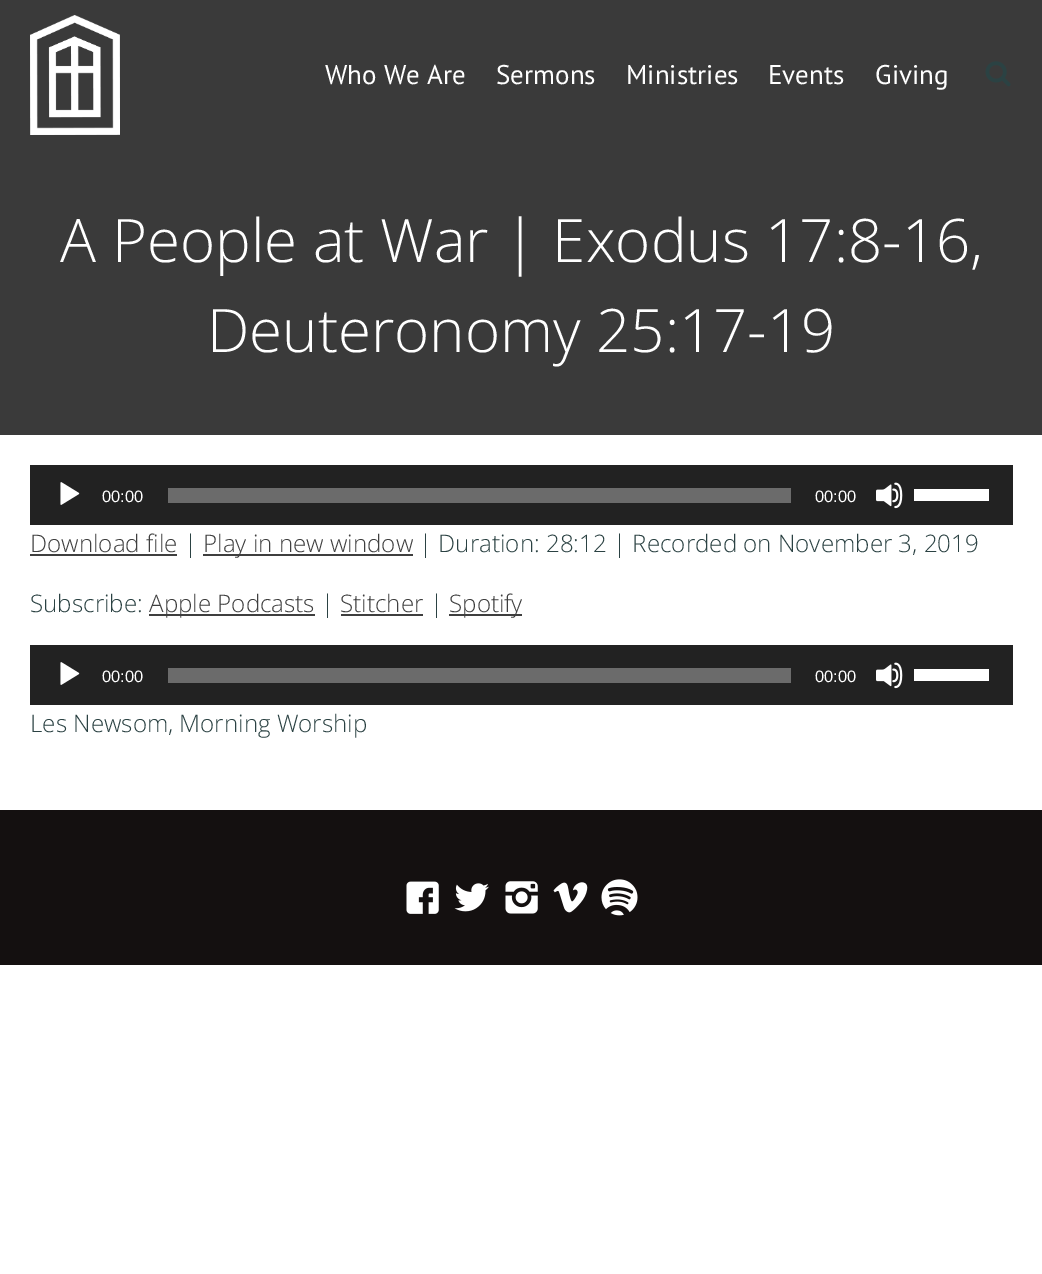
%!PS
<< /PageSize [1042 1274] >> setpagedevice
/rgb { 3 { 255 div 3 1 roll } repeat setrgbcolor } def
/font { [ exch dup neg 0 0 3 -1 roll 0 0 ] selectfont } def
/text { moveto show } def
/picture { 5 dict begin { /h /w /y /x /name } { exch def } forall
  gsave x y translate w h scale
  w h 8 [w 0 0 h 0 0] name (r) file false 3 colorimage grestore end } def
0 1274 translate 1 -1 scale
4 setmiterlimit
255 255 255 rgb
0 0 1042 1274 rectfill
58 58 58 rgb
0 0 1042 435 rectfill
(img_01.rgb) 30 15 90 120 picture
(img_02.rgb) 985 61 26 26 picture
34 34 34 rgb
30 465 983 60 rectfill
(img_03.rgb) 60 482 20 23 picture
107 107 107 rgb
168 488 623 15 rectfill
(img_04.rgb) 876 482 27 27 picture
255 255 255 rgb
914 489 75 12 rectfill
63 63 63 rgb
30 554 147 2 rectfill
203 554 210 2 rectfill
149 614 166 2 rectfill
341 614 82 2 rectfill
449 614 73 2 rectfill
34 34 34 rgb
30 645 983 60 rectfill
(img_03.rgb) 60 662 20 23 picture
107 107 107 rgb
168 668 623 15 rectfill
(img_04.rgb) 876 662 27 27 picture
255 255 255 rgb
914 669 75 12 rectfill
20 16 16 rgb
0 810 1042 155 rectfill
(img_05.rgb) 406 881 33 33 picture
(img_06.rgb) 454 883 35 29 picture
(img_07.rgb) 505 881 33 33 picture
(img_08.rgb) 553 882 35 31 picture
(img_09.rgb) 601 879 37 37 picture
/PTSans-Regular 27 font
255 255 255 rgb
(Who We Are) 325 84 text
(Sermons) 496 84 text
(Ministries) 626 84 text
(Events) 768 84 text
(Giving) 875 84 text
/OpenSans-Light 60 font
(A People at War | Exodus 17:8-16,) 60 262 text
(Deuteronomy 25:17-19) 207 352 text
/LiberationSans-Regular 16.5 font
(00:00) 102 502 text
(00:00) 815 502 text
/OpenSans-Light 24.15 font
63 63 63 rgb
(Download file) 30 552 text
43 66 67 rgb
(|) 184 552 text
63 63 63 rgb
(Play in new window) 203 552 text
43 66 67 rgb
(| Duration: 28:12 | Recorded on November 3, 2019) 419 552 text
(Subscribe:) 30 612 text
63 63 63 rgb
(Apple Podcasts) 149 612 text
43 66 67 rgb
(|) 321 612 text
63 63 63 rgb
(Stitcher) 340 612 text
43 66 67 rgb
(|) 430 612 text
63 63 63 rgb
(Spotify) 449 612 text
/LiberationSans-Regular 16.5 font
255 255 255 rgb
(00:00) 102 682 text
(00:00) 815 682 text
/OpenSans-Light 24.15 font
43 66 67 rgb
(Les Newsom, Morning Worship) 30 732 text
showpage
